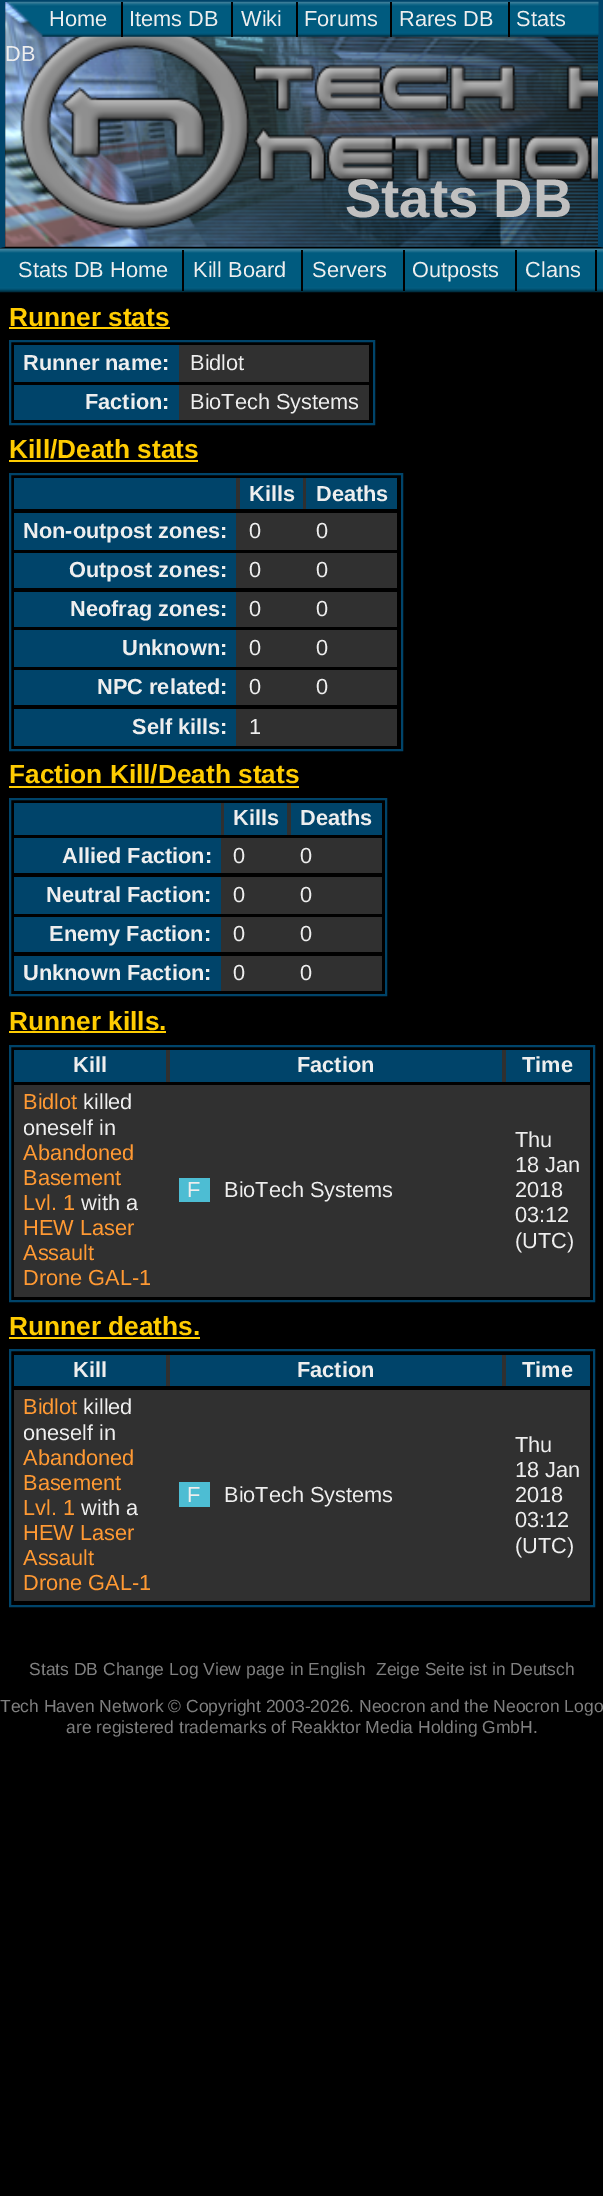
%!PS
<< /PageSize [603 2196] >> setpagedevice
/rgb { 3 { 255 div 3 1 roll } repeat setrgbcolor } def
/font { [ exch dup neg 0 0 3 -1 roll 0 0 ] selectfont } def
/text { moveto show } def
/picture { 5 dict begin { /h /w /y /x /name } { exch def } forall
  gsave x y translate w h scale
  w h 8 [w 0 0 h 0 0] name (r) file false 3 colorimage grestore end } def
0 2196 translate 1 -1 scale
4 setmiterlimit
0 0 0 rgb
0 0 603 2196 rectfill
(img_01.rgb) 5 2 593 245 picture
0 68 106 rgb
0 0 603 2 rectfill
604 0 moveto 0 248 rlineto -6 -1 rlineto 0 -245 rlineto closepath fill
0 0 0 rgb
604 248 moveto -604 0 rlineto 5 -1 rlineto 593 0 rlineto closepath fill
0 68 106 rgb
0 248 moveto 0 -248 rlineto 5 2 rlineto 0 245 rlineto closepath fill
(img_02.rgb) 5 1 594 36 picture
0 0 0 rgb
121 2 2 35 rectfill
231 2 2 35 rectfill
296 2 2 35 rectfill
390 2 2 35 rectfill
508 2 2 35 rectfill
(img_03.rgb) 0 248 603 45 picture
182 250 2 41 rectfill
301 250 2 41 rectfill
403 250 2 41 rectfill
515 250 2 41 rectfill
595 250 2 41 rectfill
255 204 1 rgb
9 327 161 2 rectfill
0 68 106 rgb
2 setlinewidth
10 341 364 83 rectstroke
48 48 48 rgb
179 345 190 37 rectfill
0 68 106 rgb
14 345 165 37 rectfill
48 48 48 rgb
179 385 190 35 rectfill
0 68 106 rgb
14 385 165 35 rectfill
255 204 1 rgb
9 460 189 2 rectfill
0 68 106 rgb
10 474 392 276 rectstroke
48 48 48 rgb
236 478 70 31 rectfill
0 68 106 rgb
14 478 222 31 rectfill
240 478 63 31 rectfill
306 478 91 31 rectfill
48 48 48 rgb
236 513 161 37 rectfill
0 68 106 rgb
14 513 222 37 rectfill
48 48 48 rgb
236 553 161 35 rectfill
0 68 106 rgb
14 553 222 35 rectfill
48 48 48 rgb
236 592 161 35 rectfill
0 68 106 rgb
14 592 222 35 rectfill
48 48 48 rgb
236 630 161 37 rectfill
0 68 106 rgb
14 630 222 37 rectfill
48 48 48 rgb
236 670 161 35 rectfill
0 68 106 rgb
14 670 222 35 rectfill
48 48 48 rgb
236 709 161 37 rectfill
0 68 106 rgb
14 709 222 37 rectfill
255 204 1 rgb
9 786 290 2 rectfill
0 68 106 rgb
10 799 376 196 rectstroke
48 48 48 rgb
221 803 70 32 rectfill
0 68 106 rgb
14 803 207 32 rectfill
224 803 63 32 rectfill
291 803 91 32 rectfill
48 48 48 rgb
221 838 161 35 rectfill
0 68 106 rgb
14 838 207 35 rectfill
48 48 48 rgb
221 877 161 37 rectfill
0 68 106 rgb
14 877 207 37 rectfill
48 48 48 rgb
221 917 161 35 rectfill
0 68 106 rgb
14 917 207 35 rectfill
48 48 48 rgb
221 956 161 35 rectfill
0 68 106 rgb
14 956 207 35 rectfill
255 204 1 rgb
9 1031 157 2 rectfill
0 68 106 rgb
10 1046 584 255 rectstroke
48 48 48 rgb
166 1050 340 32 rectfill
0 68 106 rgb
14 1050 152 32 rectfill
170 1050 332 32 rectfill
506 1050 84 32 rectfill
48 48 48 rgb
14 1085 576 212 rectfill
77 189 211 rgb
179 1178 31 24 rectfill
255 204 1 rgb
9 1337 191 2 rectfill
0 68 106 rgb
10 1350 584 256 rectstroke
48 48 48 rgb
166 1355 340 31 rectfill
0 68 106 rgb
14 1355 152 31 rectfill
170 1355 332 31 rectfill
506 1355 84 31 rectfill
48 48 48 rgb
14 1390 576 211 rectfill
77 189 211 rgb
179 1482 31 25 rectfill
/LiberationSans-Regular 21.75 font
238 238 238 rgb
(Home) 49 26 text
(Items DB) 129 26 text
(Wiki) 241 26 text
(Forums) 304 26 text
(Rares DB) 399 26 text
(Stats) 516 26 text
(DB) 5 61 text
/LiberationSans-Bold 54.5 font
192 192 192 rgb
(Stats DB) 345 217 text
/LiberationSans-Regular 21.75 font
238 238 238 rgb
(Stats DB Home) 18 277 text
(Kill Board) 193 277 text
(Servers) 312 277 text
(Outposts) 412 277 text
(Clans) 525 277 text
/LiberationSans-Bold 26.25 font
255 204 1 rgb
(Runner stats) 9 326 text
/LiberationSans-Bold 21.75 font
238 238 238 rgb
(Runner name:) 23 370 text
/LiberationSans-Regular 21.75 font
(Bidlot) 190 370 text
/LiberationSans-Bold 21.75 font
(Faction:) 85 409 text
/LiberationSans-Regular 21.75 font
(BioTech Systems) 190 409 text
/LiberationSans-Bold 26.25 font
255 204 1 rgb
(Kill/Death stats) 9 458 text
/LiberationSans-Bold 21.75 font
238 238 238 rgb
(Kills) 249 501 text
(Deaths) 316 501 text
(Non-outpost zones:) 23 538 text
/LiberationSans-Regular 21.75 font
(0) 249 538 text
(0) 316 538 text
/LiberationSans-Bold 21.75 font
(Outpost zones:) 69 577 text
/LiberationSans-Regular 21.75 font
(0) 249 577 text
(0) 316 577 text
/LiberationSans-Bold 21.75 font
(Neofrag zones:) 70 616 text
/LiberationSans-Regular 21.75 font
(0) 249 616 text
(0) 316 616 text
/LiberationSans-Bold 21.75 font
(Unknown:) 122 655 text
/LiberationSans-Regular 21.75 font
(0) 249 655 text
(0) 316 655 text
/LiberationSans-Bold 21.75 font
(NPC related:) 97 694 text
/LiberationSans-Regular 21.75 font
(0) 249 694 text
(0) 316 694 text
/LiberationSans-Bold 21.75 font
(Self kills:) 132 734 text
/LiberationSans-Regular 21.75 font
(1) 249 734 text
/LiberationSans-Bold 26.25 font
255 204 1 rgb
(Faction Kill/Death stats) 9 783 text
/LiberationSans-Bold 21.75 font
238 238 238 rgb
(Kills) 233 825 text
(Deaths) 300 825 text
(Allied Faction:) 62 863 text
/LiberationSans-Regular 21.75 font
(0) 233 863 text
(0) 300 863 text
/LiberationSans-Bold 21.75 font
(Neutral Faction:) 46 902 text
/LiberationSans-Regular 21.75 font
(0) 233 902 text
(0) 300 902 text
/LiberationSans-Bold 21.75 font
(Enemy Faction:) 49 941 text
/LiberationSans-Regular 21.75 font
(0) 233 941 text
(0) 300 941 text
/LiberationSans-Bold 21.75 font
(Unknown Faction:) 23 980 text
/LiberationSans-Regular 21.75 font
(0) 233 980 text
(0) 300 980 text
/LiberationSans-Bold 26.25 font
255 204 1 rgb
(Runner kills.) 9 1030 text
/LiberationSans-Bold 21.75 font
238 238 238 rgb
(Kill) 73 1072 text
(Faction) 297 1072 text
(Time) 522 1072 text
/LiberationSans-Regular 21.75 font
255 153 51 rgb
(Bidlot) 23 1109 text
238 238 238 rgb
(killed) 83 1109 text
(oneself in) 23 1135 text
255 153 51 rgb
(Abandoned) 23 1160 text
(Basement) 23 1185 text
(Lvl. 1) 23 1210 text
238 238 238 rgb
(with a) 81 1210 text
255 153 51 rgb
(HEW Laser) 23 1235 text
(Assault) 23 1260 text
(Drone GAL-1) 23 1285 text
238 238 238 rgb
(F) 187 1197 text
(BioTech Systems) 224 1197 text
(Thu) 515 1147 text
(18 Jan) 515 1172 text
(2018) 515 1197 text
(03:12) 515 1222 text
(\(UTC\)) 515 1248 text
/LiberationSans-Bold 26.25 font
255 204 1 rgb
(Runner deaths.) 9 1335 text
/LiberationSans-Bold 21.75 font
238 238 238 rgb
(Kill) 73 1377 text
(Faction) 297 1377 text
(Time) 522 1377 text
/LiberationSans-Regular 21.75 font
255 153 51 rgb
(Bidlot) 23 1414 text
238 238 238 rgb
(killed) 83 1414 text
(oneself in) 23 1440 text
255 153 51 rgb
(Abandoned) 23 1465 text
(Basement) 23 1490 text
(Lvl. 1) 23 1515 text
238 238 238 rgb
(with a) 81 1515 text
255 153 51 rgb
(HEW Laser) 23 1540 text
(Assault) 23 1565 text
(Drone GAL-1) 23 1590 text
238 238 238 rgb
(F) 187 1502 text
(BioTech Systems) 224 1502 text
(Thu) 515 1452 text
(18 Jan) 515 1477 text
(2018) 515 1502 text
(03:12) 515 1527 text
(\(UTC\)) 515 1553 text
/LiberationSans-Regular 17.5 font
128 128 128 rgb
(Stats DB Change Log View page in English) 29 1675 text
(Zeige Seite ist in Deutsch) 376 1675 text
(Tech Haven Network © Copyright 2003-2026. Neocron and the Neocron Logo) 0 1712 text
(are registered trademarks of Reakktor Media Holding GmbH.) 66 1733 text
showpage
